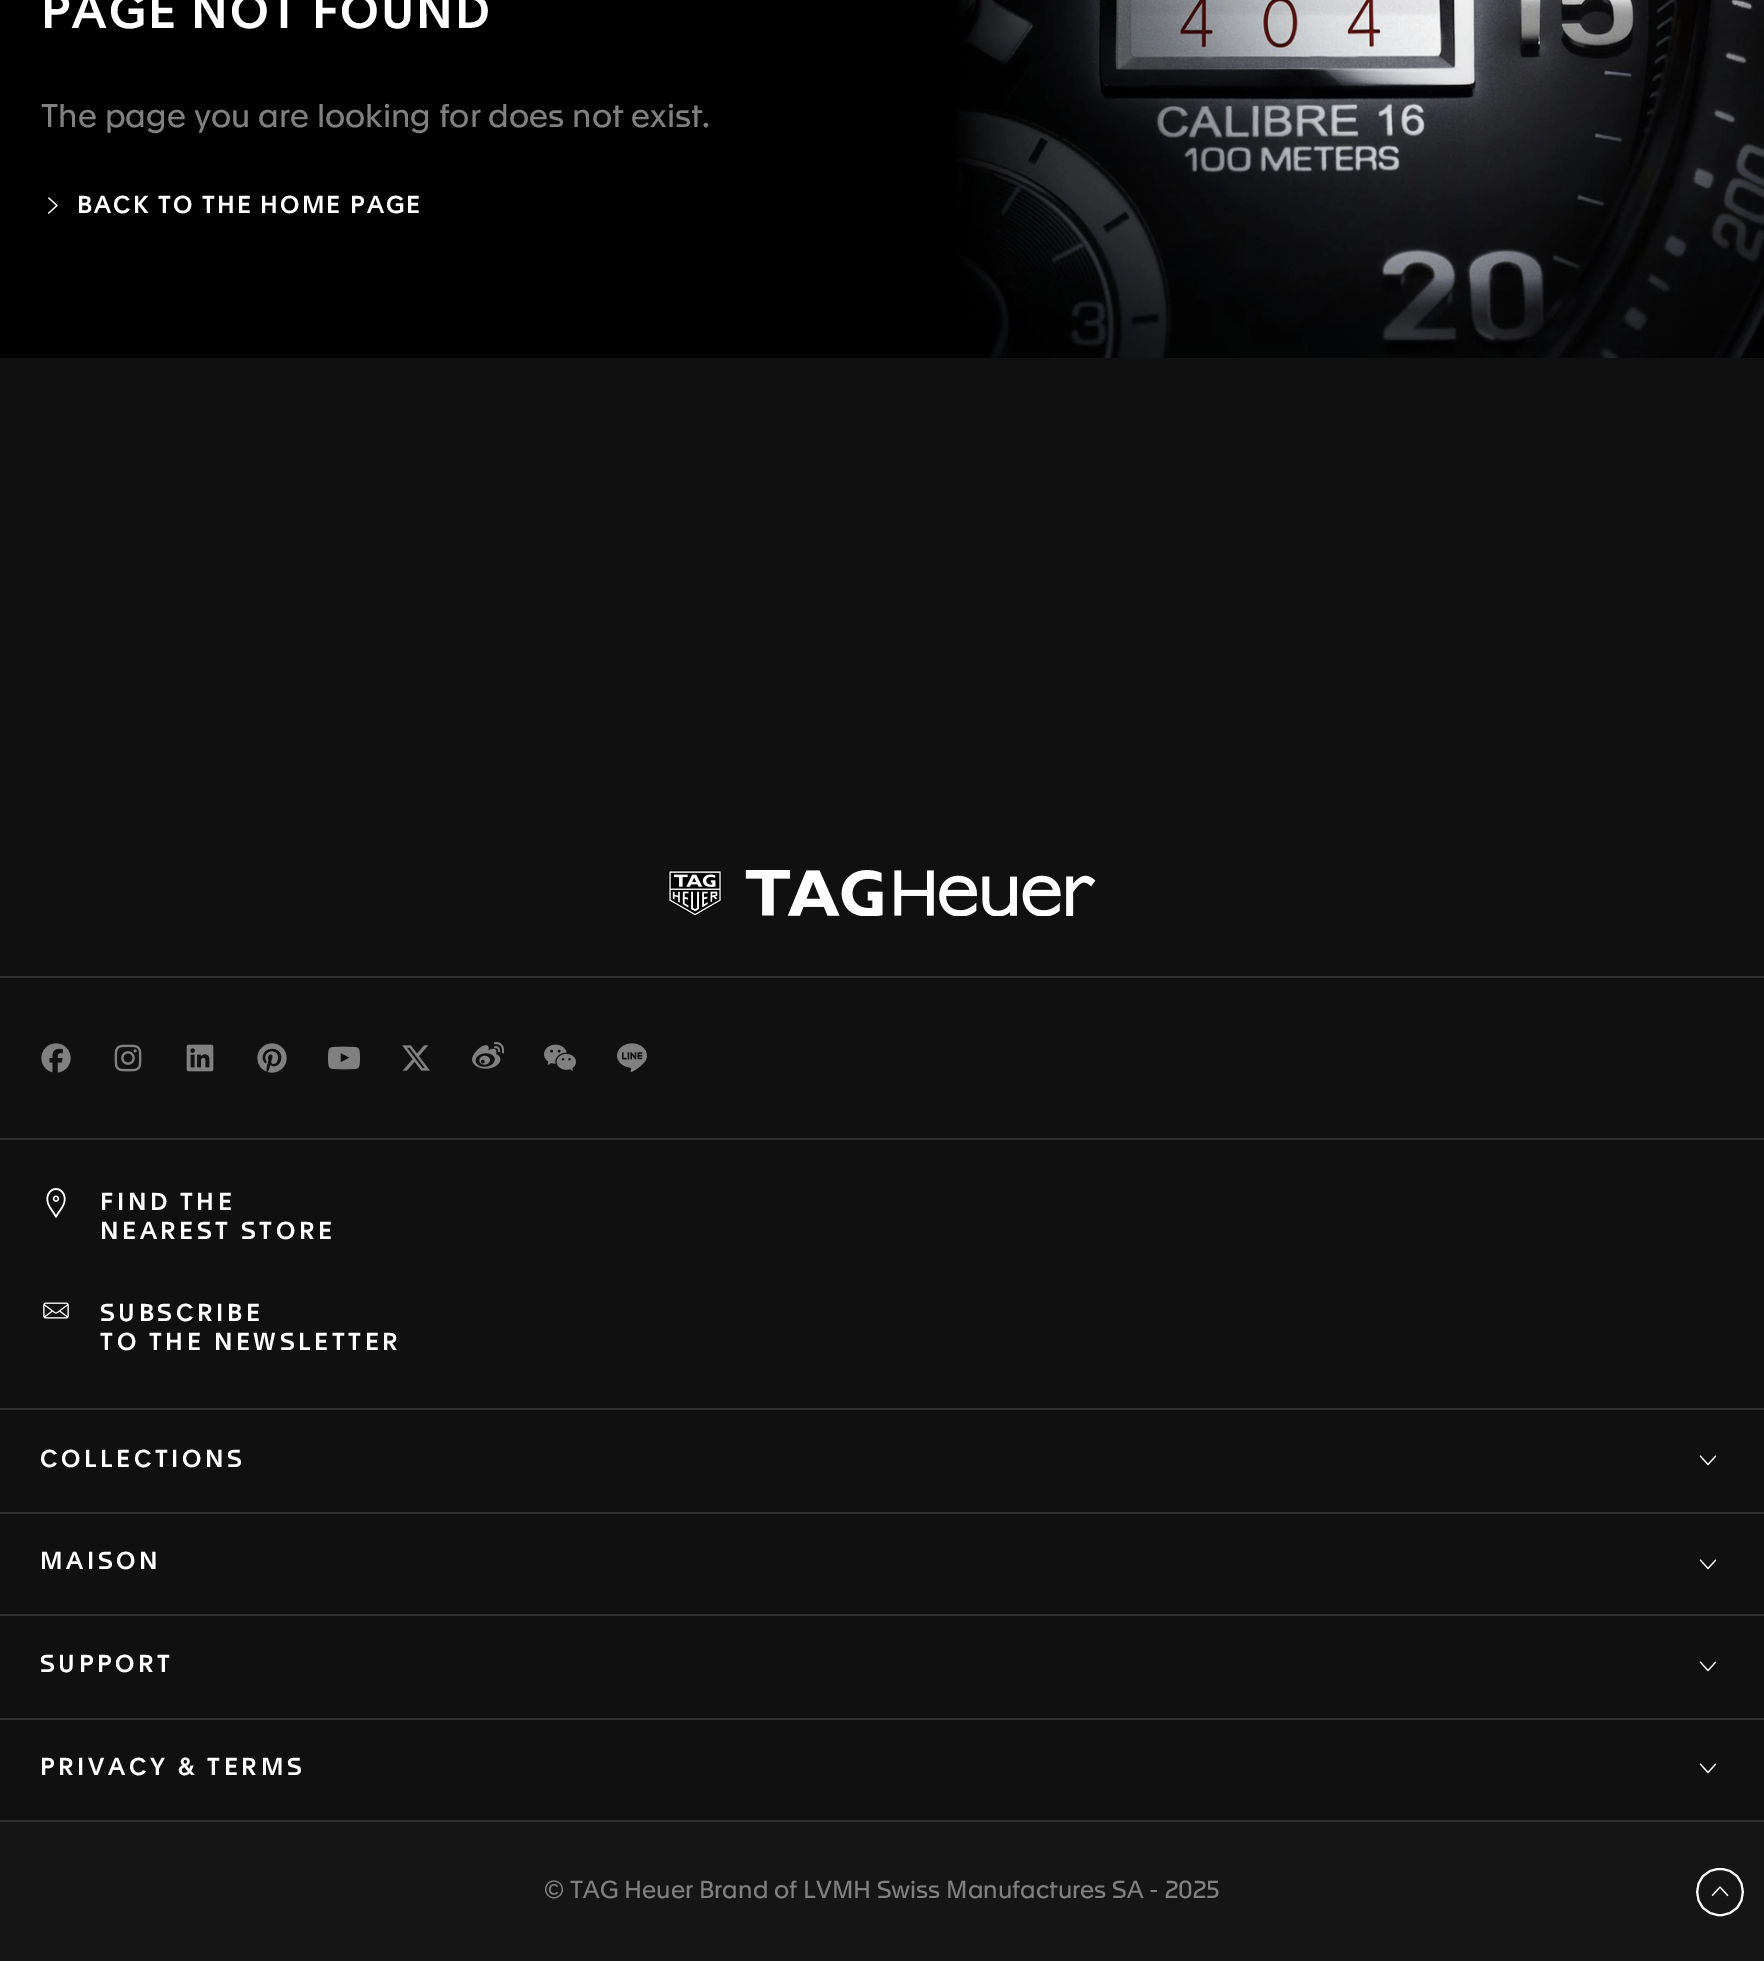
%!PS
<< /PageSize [1764 1961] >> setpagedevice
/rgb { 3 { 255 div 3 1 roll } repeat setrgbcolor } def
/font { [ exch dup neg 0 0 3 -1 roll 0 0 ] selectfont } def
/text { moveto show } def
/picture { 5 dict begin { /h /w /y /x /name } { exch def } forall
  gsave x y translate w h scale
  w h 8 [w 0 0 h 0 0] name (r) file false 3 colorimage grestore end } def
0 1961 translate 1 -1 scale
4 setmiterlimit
0 0 0 rgb
0 0 1764 1961 rectfill
(img_01.rgb) 47 197 11 17 picture
(img_02.rgb) 956 0 808 358 picture
16 16 16 rgb
0 358 1764 1462 rectfill
46 46 46 rgb
0 976 1764 2 rectfill
(img_03.rgb) 668 870 428 46 picture
0 1408 1764 2 rectfill
0 1138 1764 2 rectfill
(img_04.rgb) 41 1043 30 30 picture
(img_05.rgb) 114 1044 28 28 picture
(img_06.rgb) 186 1044 28 28 picture
(img_07.rgb) 257 1043 30 30 picture
(img_08.rgb) 328 1046 32 24 picture
(img_09.rgb) 402 1045 28 26 picture
(img_10.rgb) 472 1042 32 27 picture
(img_11.rgb) 544 1044 32 27 picture
(img_12.rgb) 617 1043 30 29 picture
(img_13.rgb) 46 1188 20 30 picture
(img_14.rgb) 43 1302 26 17 picture
0 1512 1764 2 rectfill
(img_15.rgb) 1699 1455 18 11 picture
0 1614 1764 2 rectfill
(img_15.rgb) 1699 1559 18 11 picture
0 1718 1764 2 rectfill
(img_15.rgb) 1699 1661 18 11 picture
0 1820 1764 2 rectfill
(img_15.rgb) 1699 1763 18 11 picture
21 21 21 rgb
0 1822 1764 139 rectfill
255 255 255 rgb
2 setlinewidth
1720 1915 moveto -30.5 0 -30.5 -46 0 -46 rcurveto 30.5 0 30.5 46 0 46 rcurveto closepath stroke
(img_16.rgb) 1711 1886 18 11 picture
/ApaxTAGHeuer-Medium 48 font
41 28 moveto 2 0 (PAGE NOT FOUND) ashow
/ApaxTAGHeuer-Regular 32 font
128 128 128 rgb
(The page you are looking for does not exist.) 41 127 text
/ApaxTAGHeuer-Medium 24 font
255 255 255 rgb
77 213 moveto 2 0 (BACK TO THE HOME PAGE) ashow
100 1210 moveto 3.6 0 (FIND THE) ashow
100 1239 moveto 3.6 0 (NEAREST STORE) ashow
100 1321 moveto 3.6 0 (SUBSCRIBE) ashow
100 1350 moveto 3.6 0 (TO THE NEWSLETTER) ashow
40 1467 moveto 3.6 0 (COLLECTIONS) ashow
40 1569 moveto 3.6 0 (MAISON) ashow
40 1672 moveto 3.6 0 (SUPPORT) ashow
40 1775 moveto 3.6 0 (PRIVACY & TERMS) ashow
/ApaxTAGHeuer-Regular 24 font
128 128 128 rgb
(© TAG Heuer Brand of LVMH Swiss Manufactures SA - 2025) 544 1898 text
showpage
